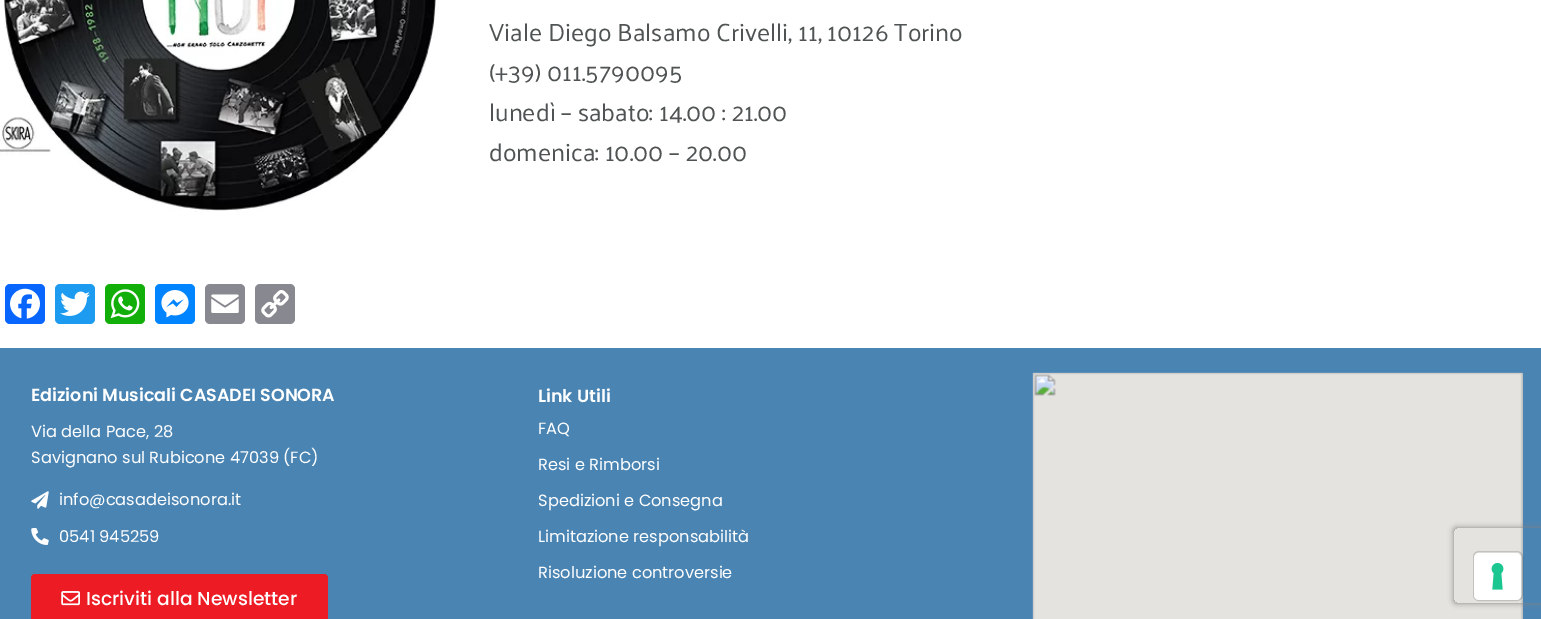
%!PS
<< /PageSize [1541 619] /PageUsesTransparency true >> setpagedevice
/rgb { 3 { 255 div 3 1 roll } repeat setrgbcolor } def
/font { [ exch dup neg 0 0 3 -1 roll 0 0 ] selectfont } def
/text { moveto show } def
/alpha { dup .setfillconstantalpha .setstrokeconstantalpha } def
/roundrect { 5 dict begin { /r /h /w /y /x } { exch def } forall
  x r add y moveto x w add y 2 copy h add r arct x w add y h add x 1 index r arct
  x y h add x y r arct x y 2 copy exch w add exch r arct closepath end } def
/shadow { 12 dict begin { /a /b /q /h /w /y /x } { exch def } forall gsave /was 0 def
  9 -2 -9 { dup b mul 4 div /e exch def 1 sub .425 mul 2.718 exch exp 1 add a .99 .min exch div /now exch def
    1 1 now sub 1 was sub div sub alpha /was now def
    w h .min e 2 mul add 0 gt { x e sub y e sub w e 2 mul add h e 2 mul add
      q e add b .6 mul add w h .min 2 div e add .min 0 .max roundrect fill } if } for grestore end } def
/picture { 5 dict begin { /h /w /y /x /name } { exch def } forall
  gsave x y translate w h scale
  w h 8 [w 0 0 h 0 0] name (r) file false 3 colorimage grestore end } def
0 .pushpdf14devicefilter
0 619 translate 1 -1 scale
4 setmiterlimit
255 255 255 rgb
0 0 1541 619 rectfill
(img_01.rgb) 0 0 439 212 picture
8 102 255 rgb
5 284 40 40 5 roundrect fill
(img_02.rgb) 10 288 30 31 picture
29 155 240 rgb
55 284 40 40 5 roundrect fill
(img_03.rgb) 60 291 30 25 picture
18 175 10 rgb
105 284 40 40 5 roundrect fill
(img_04.rgb) 110 289 30 30 picture
0 132 255 rgb
155 284 40 40 5 roundrect fill
(img_05.rgb) 161 290 28 28 picture
136 137 144 rgb
205 284 40 40 5 roundrect fill
(img_06.rgb) 211 294 28 19 picture
255 284 40 40 5 roundrect fill
(img_07.rgb) 261 290 28 28 picture
74 132 179 rgb
0 348 1541 271 rectfill
(img_08.rgb) 31 491 18 18 picture
(img_09.rgb) 31 528 18 17 picture
237 27 36 rgb
31 574 297 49 4 roundrect fill
(img_10.rgb) 61 591 19 15 picture
(img_11.rgb) 1032 372 491 247 picture
gsave
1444 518 moveto 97 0 rlineto 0 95 rlineto -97 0 rlineto closepath 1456.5 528 moveto 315 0 rlineto 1.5 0 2.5 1 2.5 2.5 rcurveto 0 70 rlineto 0 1.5 -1 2.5 -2.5 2.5 rcurveto -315 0 rlineto -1.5 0 -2.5 -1 -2.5 -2.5 rcurveto 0 -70 rlineto 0 -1.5 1 -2.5 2.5 -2.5 rcurveto closepath eoclip newpath
128 128 128 rgb
1454 528 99 75 2.5 3 1 shadow
grestore
0.15 alpha
0 0 0 rgb
1473.5 551.5 49 49 5.5 roundrect stroke
1 alpha
255 255 255 rgb
1474 553 47 47 5 roundrect fill
(img_12.rgb) 1491 562 13 28 picture
/Palanquin-Regular 25 font
79 83 83 rgb
(Viale Diego Balsamo Crivelli, 11, 10126 Torino) 489 41 text
(\(+39\) 011.5790095) 489 81 text
(lunedì – sabato: 14.00 : 21.00) 489 121 text
(domenica: 10.00 – 20.00) 489 161 text
/Poppins-SemiBold 17.5 font
255 255 255 rgb
(Edizioni Musicali CASADEI SONORA) 31 401 text
/Poppins-Regular 16.25 font
(Via della Pace, 28) 31 437 text
(Savignano sul Rubicone 47039 \(FC\)) 31 463 text
(info@casadeisonora.it) 59 505 text
(0541 945259) 59 542 text
/Poppins-Medium 18.75 font
(Iscriviti alla Newsletter) 86 605 text
/Poppins-SemiBold 17.5 font
(Link Utili) 538 402 text
/Poppins-Regular 16.25 font
(FAQ) 538 434 text
(Resi e Rimborsi) 538 470 text
(Spedizioni e Consegna) 538 506 text
(Limitazione responsabilità) 538 542 text
(Risoluzione controversie) 538 578 text
.poppdf14devicefilter showpage
